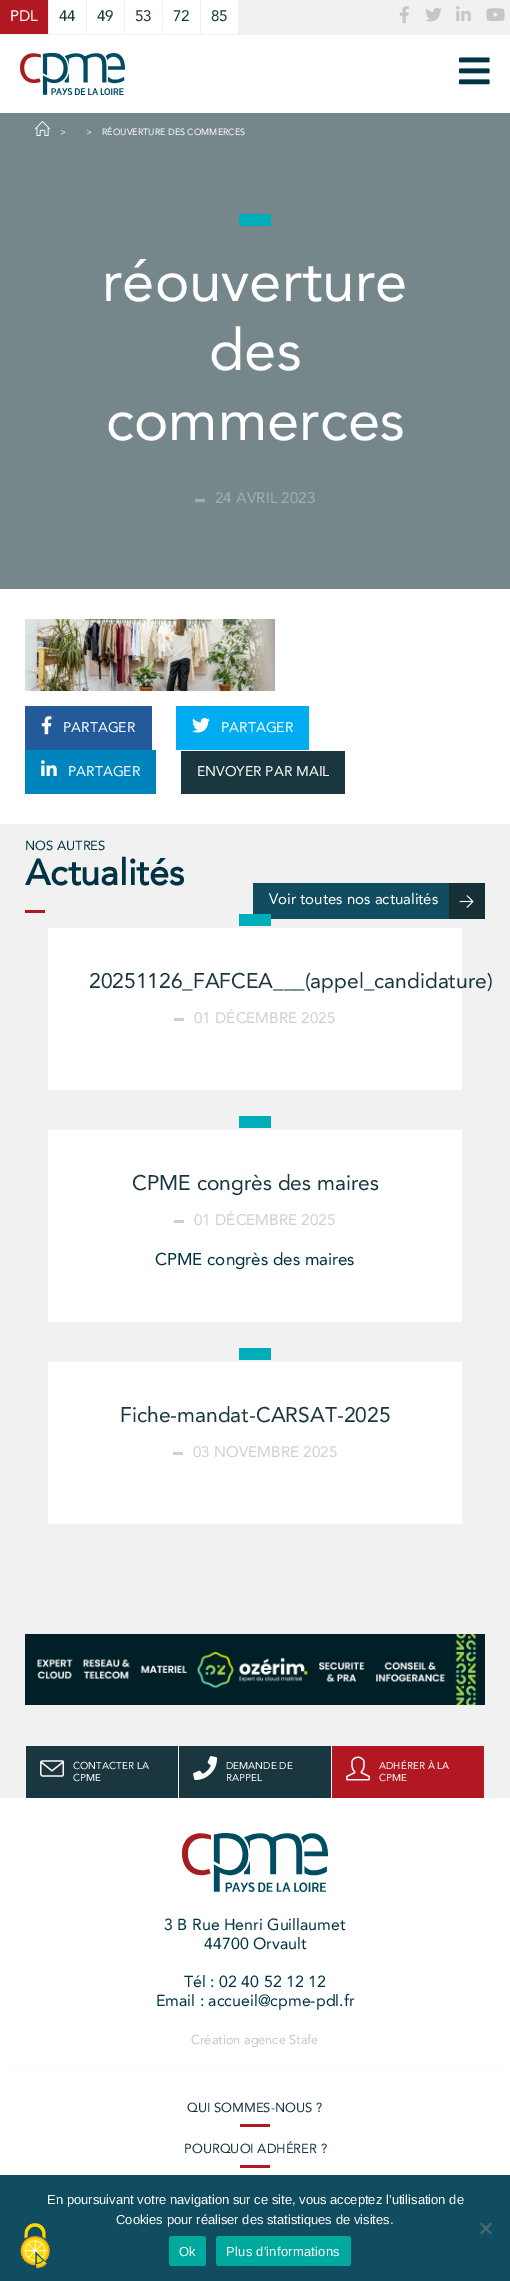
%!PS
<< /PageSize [510 2281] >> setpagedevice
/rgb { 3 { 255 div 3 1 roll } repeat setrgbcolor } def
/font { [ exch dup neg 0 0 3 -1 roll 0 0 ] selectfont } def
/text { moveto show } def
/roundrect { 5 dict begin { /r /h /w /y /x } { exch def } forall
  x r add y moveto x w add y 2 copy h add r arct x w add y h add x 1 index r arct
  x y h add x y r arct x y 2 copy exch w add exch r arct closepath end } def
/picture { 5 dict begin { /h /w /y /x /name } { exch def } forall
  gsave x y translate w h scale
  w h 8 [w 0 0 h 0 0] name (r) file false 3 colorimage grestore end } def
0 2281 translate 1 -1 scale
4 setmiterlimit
255 255 255 rgb
0 0 510 2281 rectfill
241 241 241 rgb
238 0 272 35 rectfill
178 24 34 rgb
0 0 48 34 rectfill
241 241 241 rgb
48 0 1 35 rectfill
0 34 49 1 rectfill
86 0 1 35 rectfill
49 34 38 1 rectfill
124 0 1 35 rectfill
87 34 38 1 rectfill
162 0 1 35 rectfill
125 34 38 1 rectfill
200 0 1 35 rectfill
163 34 76 1 rectfill
(img_01.rgb) 399 6 10 18 picture
(img_02.rgb) 425 7 17 15 picture
(img_03.rgb) 456 6 15 15 picture
(img_04.rgb) 486 8 19 13 picture
(img_05.rgb) 20 53 105 42 picture
(img_06.rgb) 459 57 31 28 picture
118 135 140 rgb
0 113 510 476 rectfill
(img_07.rgb) 35 121 15 15 picture
0 173 185 rgb
239 214 32 12 rectfill
167 172 174 rgb
195 499 10 3 rectfill
(img_08.rgb) 25 619 250 72 picture
35 90 154 rgb
25 706 127 44 rectfill
(img_09.rgb) 41 716 11 19 picture
0 173 242 rgb
176 706 133 44 rectfill
(img_10.rgb) 192 717 18 16 picture
0 132 189 rgb
25 750 131 44 rectfill
(img_11.rgb) 41 760 16 16 picture
26 55 63 rgb
181 751 164 43 rectfill
241 241 241 rgb
0 824 510 974 rectfill
17 77 97 rgb
253 883 196 36 rectfill
22 48 54 rgb
449 883 36 36 rectfill
(img_12.rgb) 459 895 15 13 picture
178 24 34 rgb
25 910 20 3 rectfill
255 255 255 rgb
48 928 414 162 rectfill
0 173 185 rgb
239 914 32 12 rectfill
208 208 208 rgb
174 1018 10 3 rectfill
255 255 255 rgb
48 1130 414 192 rectfill
0 173 185 rgb
239 1116 32 12 rectfill
208 208 208 rgb
174 1220 10 3 rectfill
255 255 255 rgb
48 1362 414 162 rectfill
0 173 185 rgb
239 1348 32 12 rectfill
208 208 208 rgb
173 1452 10 3 rectfill
(img_13.rgb) 25 1634 460 71 picture
26 55 63 rgb
26 1746 152 52 rectfill
(img_14.rgb) 40 1760 25 17 picture
179 1746 152 52 rectfill
(img_15.rgb) 193 1756 25 24 picture
178 24 34 rgb
332 1746 152 52 rectfill
(img_16.rgb) 346 1756 24 25 picture
(img_17.rgb) 182 1833 146 59 picture
248 249 250 rgb
10 2070 490 1 rectfill
178 24 34 rgb
240 2124 30 3 rectfill
240 2165 30 3 rectfill
17 77 97 rgb
0 2175 510 106 rectfill
(img_18.rgb) 20 2223 30 46 picture
73 103 113 rgb
490.5 2222.5 moveto 1.5 1.5 rlineto -10.5 10.5 rlineto -1.5 -1.5 rlineto closepath fill
480 2224 moveto 1.5 -1.5 rlineto 10.5 10.5 rlineto -1.5 1.5 rlineto closepath fill
0 169 157 rgb
169 2236 37 30 3 roundrect fill
216 2236 135 30 3 roundrect fill
/Avenir-Regular 15.25 font
255 255 255 rgb
(PDL) 10 21 text
26 55 63 rgb
(44) 59 21 text
(49) 97 21 text
(53) 135 21 text
(72) 173 21 text
(85) 211 21 text
/Avenir-Regular 9 font
255 255 255 rgb
(>) 60 135 text
(>) 86 135 text
(RÉOUVERTURE DES COMMERCES) 102 135 text
/Avenir-Regular 58 font
(réouverture) 102 301 text
(des) 209 370 text
(commerces) 106 440 text
/Avenir-Regular 15.25 font
167 172 174 rgb
(24 AVRIL 2023) 215 503 text
/Avenir-Regular 14 font
255 255 255 rgb
(PARTAGER) 63 732 text
(PARTAGER) 221 732 text
(PARTAGER) 68 776 text
(ENVOYER PAR MAIL) 197 776 text
/Avenir-Regular 13 font
0 52 68 rgb
(NOS AUTRES) 25 850 text
/Avenir-Bold 36 font
(Actualités) 25 885 text
/Avenir-Regular 15 font
255 255 255 rgb
(Voir toutes nos actualités) 269 904 text
/Avenir-Regular 21 font
26 55 63 rgb
(20251126_FAFCEA___\(appel_candidature\)) 89 988 text
/Avenir-Regular 15.25 font
208 208 208 rgb
(01 DÉCEMBRE 2025) 194 1023 text
/Avenir-Regular 21 font
26 55 63 rgb
(CPME congrès des maires) 132 1190 text
/Avenir-Regular 15.25 font
208 208 208 rgb
(01 DÉCEMBRE 2025) 194 1225 text
/Avenir-Regular 17 font
0 52 68 rgb
(CPME congrès des maires) 155 1265 text
/Avenir-Regular 21 font
26 55 63 rgb
(Fiche-mandat-CARSAT-2025) 120 1422 text
/Avenir-Regular 15.25 font
208 208 208 rgb
(03 NOVEMBRE 2025) 193 1457 text
/Avenir-Regular 10 font
255 255 255 rgb
(CONTACTER LA) 73 1769 text
(CPME) 73 1781 text
(DEMANDE DE) 226 1769 text
(RAPPEL) 226 1781 text
(ADHÉRER À LA) 379 1769 text
(CPME) 379 1781 text
/Avenir-Regular 16 font
0 52 68 rgb
(3 B Rue Henri Guillaumet) 164 1930 text
(44700 Orvault) 204 1949 text
(Tél : 02 40 52 12 12) 184 1987 text
(Email : accueil@cpme-pdl.fr) 156 2006 text
/Avenir-Regular 12.75 font
198 200 210 rgb
(Création agence Stafe) 191 2044 text
/Avenir-Regular 13 font
26 55 63 rgb
(QUI SOMMES-NOUS ?) 187 2112 text
(POURQUOI ADHÉRER ?) 184 2153 text
/LiberationSans-Regular 13 font
255 255 255 rgb
(En poursuivant votre navigation sur ce site, vous acceptez l’utilisation de) 47 2204 text
(Cookies pour réaliser des statistiques de visites.) 116 2224 text
179 2256 moveto 0.25 0 (Ok) ashow
226 2256 moveto 0.25 0 (Plus d'informations) ashow
showpage
